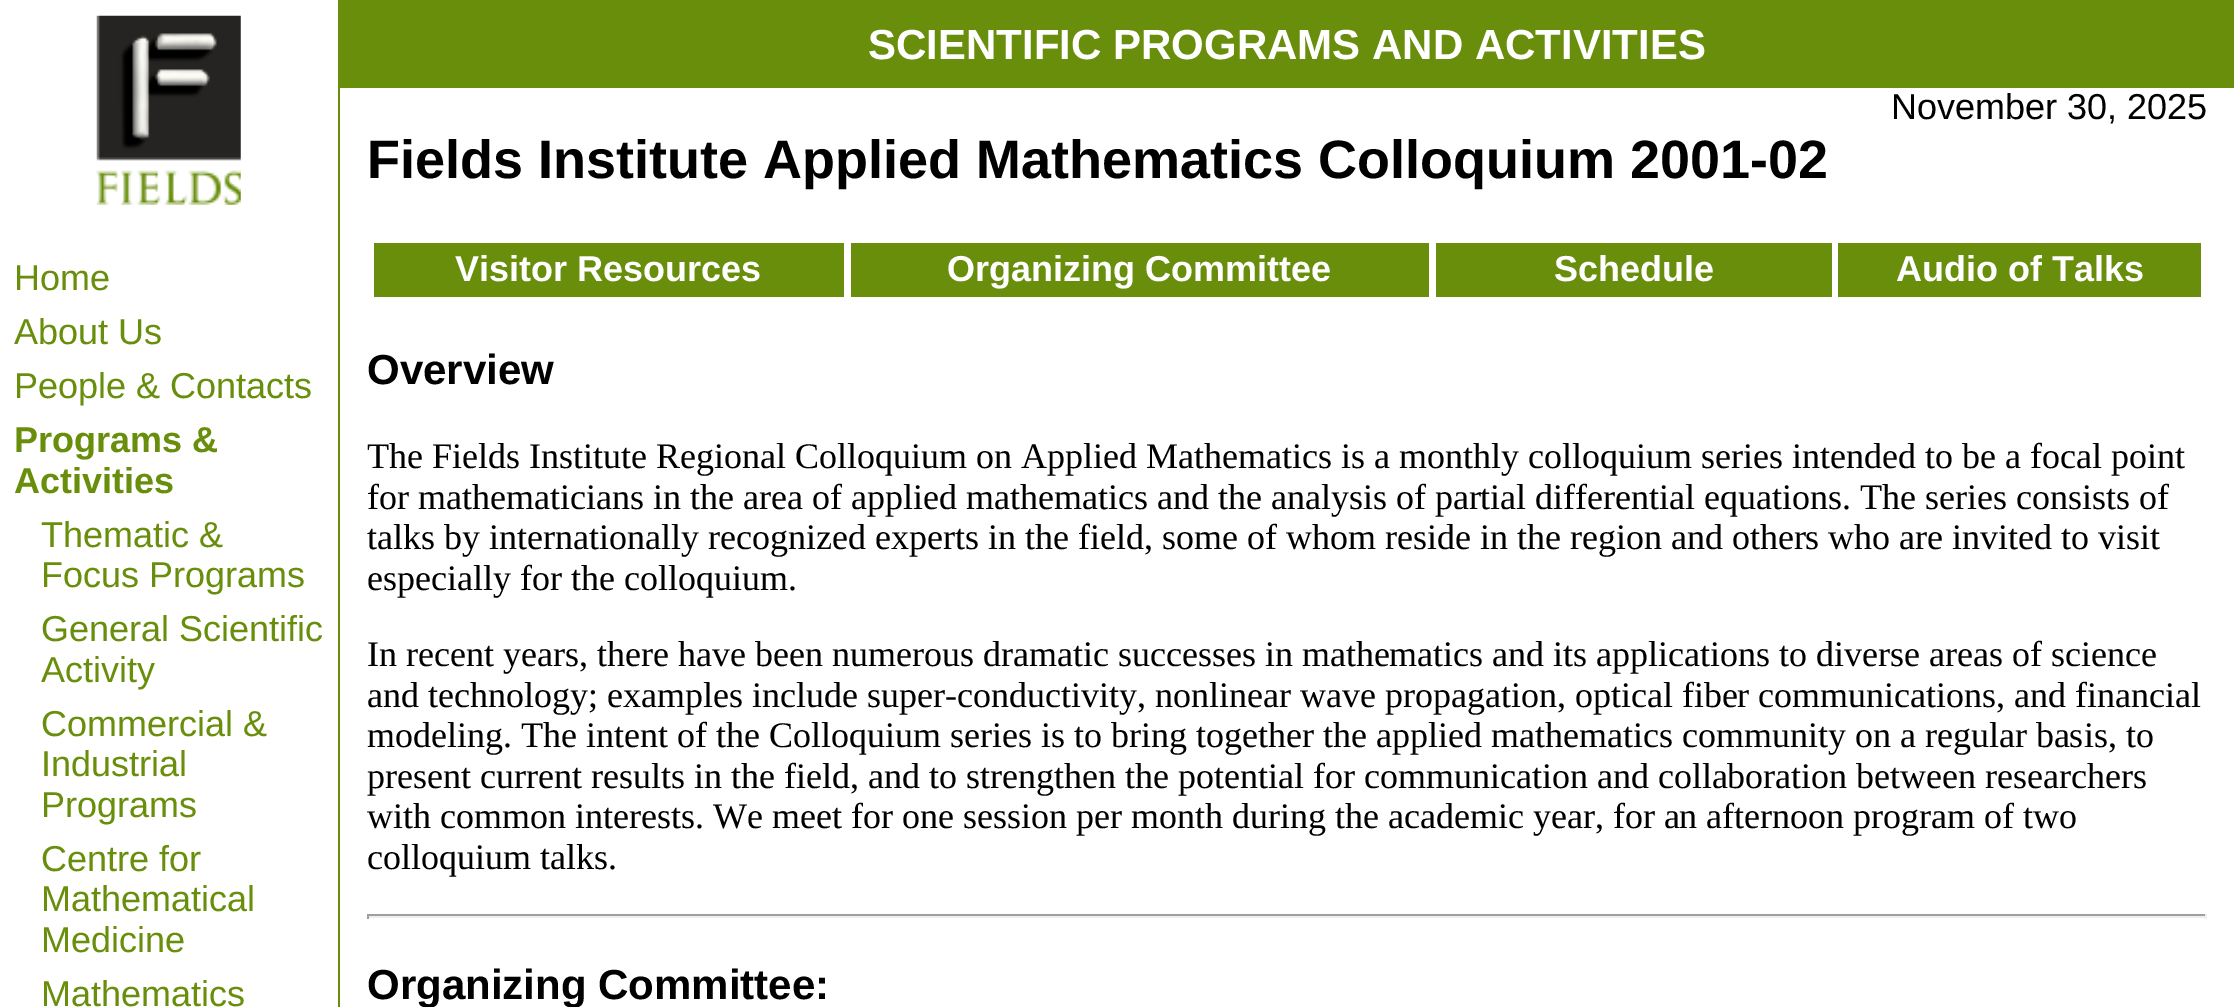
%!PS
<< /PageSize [2234 1007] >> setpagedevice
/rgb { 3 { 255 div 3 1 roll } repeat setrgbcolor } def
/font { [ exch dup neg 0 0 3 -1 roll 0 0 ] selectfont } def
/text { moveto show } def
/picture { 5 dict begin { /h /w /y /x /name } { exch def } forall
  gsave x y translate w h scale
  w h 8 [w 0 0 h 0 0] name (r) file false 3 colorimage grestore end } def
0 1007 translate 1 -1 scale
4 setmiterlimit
255 255 255 rgb
0 0 2234 1007 rectfill
104 142 12 rgb
338 0 1896 2 rectfill
338 2 2 1005 rectfill
340 2 1894 86 rectfill
(img_01.rgb) 96 15 145 190 picture
374 243 470 54 rectfill
851 243 578 54 rectfill
1436 243 396 54 rectfill
1838 243 363 54 rectfill
159 159 159 rgb
367 914 1840 2 rectfill
238 238 238 rgb
2205 914 2 5 rectfill
367 916 1840 2 rectfill
159 159 159 rgb
367 914 2 5 rectfill
/LiberationSans-Bold 42 font
255 255 255 rgb
(SCIENTIFIC PROGRAMS AND ACTIVITIES) 868 59 text
/LiberationSans-Regular 36 font
104 142 12 rgb
(Home) 14 290 text
(About Us) 14 344 text
(People & Contacts) 14 398 text
/LiberationSans-Bold 36 font
(Programs &) 14 452 text
(Activities) 14 493 text
/LiberationSans-Regular 36 font
(Thematic &) 41 547 text
(Focus Programs) 41 587 text
(General Scientific) 41 641 text
(Activity) 41 682 text
(Commercial &) 41 736 text
(Industrial) 41 776 text
(Programs) 41 817 text
(Centre for) 41 871 text
(Mathematical) 41 911 text
(Medicine) 41 952 text
(Mathematics) 41 1006 text
0 0 0 rgb
(November 30, 2025) 1891 119 text
/LiberationSans-Bold 54 font
(Fields Institute Applied Mathematics Colloquium 2001-02) 367 178 text
/LiberationSans-Bold 36 font
255 255 255 rgb
(Visitor Resources) 455 281 text
(Organizing Committee) 947 281 text
(Schedule) 1554 281 text
(Audio of Talks) 1896 281 text
/LiberationSans-Bold 42 font
0 0 0 rgb
(Overview) 367 384 text
/LiberationSerif-Regular 36 font
(The Fields Institute Regional Colloquium on Applied Mathematics is a monthly colloquium series intended to be a focal point) 367 468 text
(for mathematicians in the area of applied mathematics and the analysis of partial differential equations. The series consists of) 367 509 text
(talks by internationally recognized experts in the field, some of whom reside in the region and others who are invited to visit) 367 549 text
(especially for the colloquium.) 367 590 text
(In recent years, there have been numerous dramatic successes in mathematics and its applications to diverse areas of science) 367 666 text
(and technology; examples include super-conductivity, nonlinear wave propagation, optical fiber communications, and financial) 367 707 text
(modeling. The intent of the Colloquium series is to bring together the applied mathematics community on a regular basis, to) 367 747 text
(present current results in the field, and to strengthen the potential for communication and collaboration between researchers) 367 788 text
(with common interests. We meet for one session per month during the academic year, for an afternoon program of two) 367 828 text
(colloquium talks.) 367 869 text
/LiberationSans-Bold 42 font
(Organizing Committee:) 367 999 text
showpage
